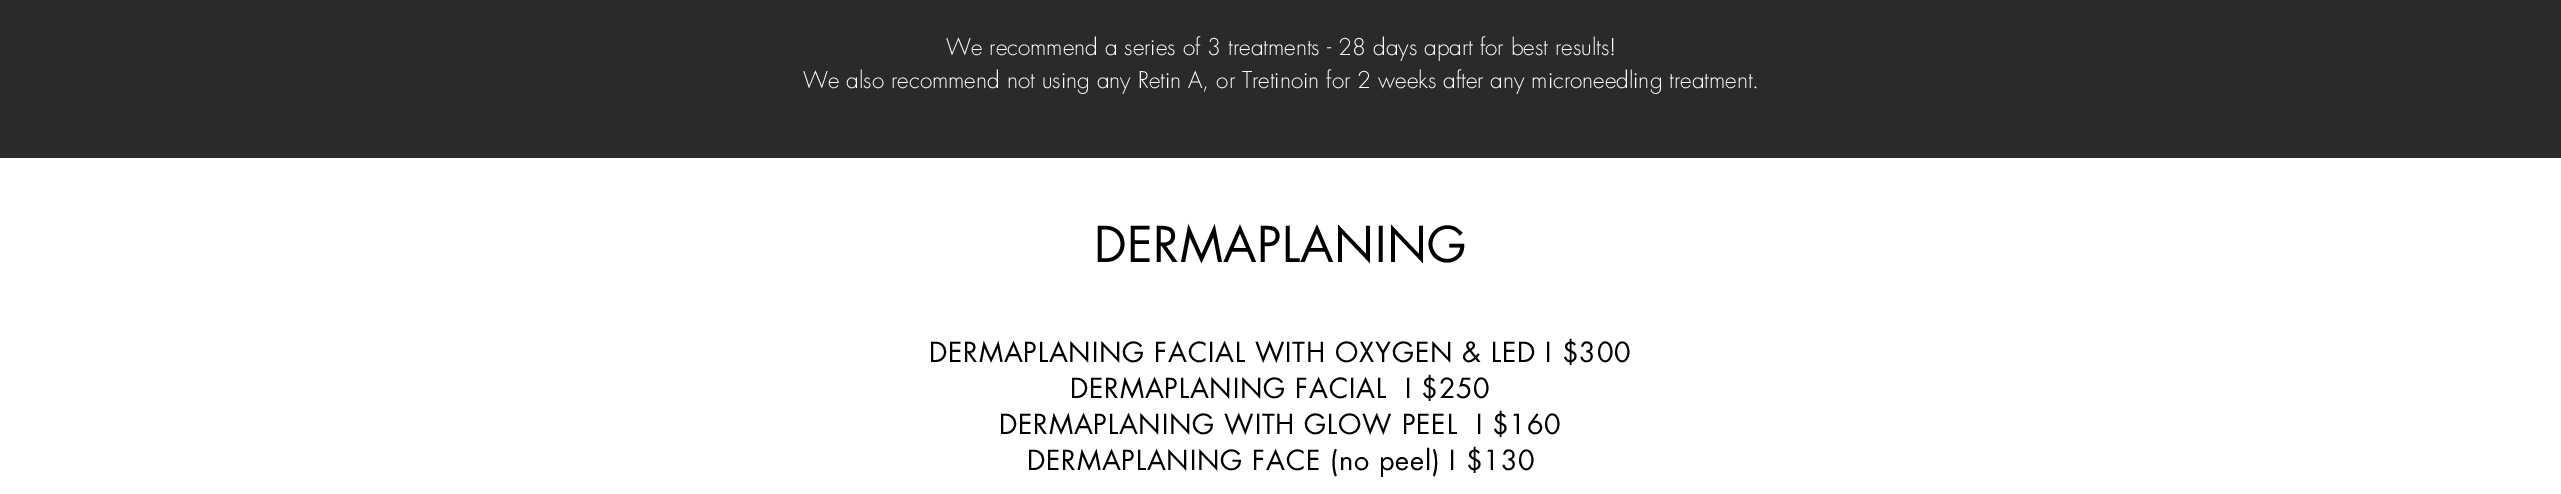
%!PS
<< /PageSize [2561 494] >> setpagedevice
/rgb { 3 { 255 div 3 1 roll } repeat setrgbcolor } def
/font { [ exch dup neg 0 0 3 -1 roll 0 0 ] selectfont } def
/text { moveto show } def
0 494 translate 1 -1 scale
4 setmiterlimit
42 42 42 rgb
0 0 2561 494 rectfill
255 255 255 rgb
0 158 2561 336 rectfill
/futura-Light 22.5 font
(We recommend a series of 3 treatments - 28 days apart for best results!) 946 55 text
(We also recommend not using any Retin A, or Tretinoin for 2 weeks after any microneedling treatment.) 803 88 text
/futura-Regular 48 font
0 0 0 rgb
1094 262 moveto 0.5 0 (DERMAPLANING) ashow
/futura-Regular 27 font
929 362 moveto 0.8 0 (DERMAPLANING FACIAL WITH OXYGEN & LED I $300) ashow
1070 398 moveto 0.8 0 (DERMAPLANING FACIAL  I $250) ashow
999 434 moveto 0.8 0 (DERMAPLANING WITH GLOW PEEL  I $160) ashow
1027 470 moveto 0.8 0 (DERMAPLANING FACE \(no peel\) I $130) ashow
showpage
